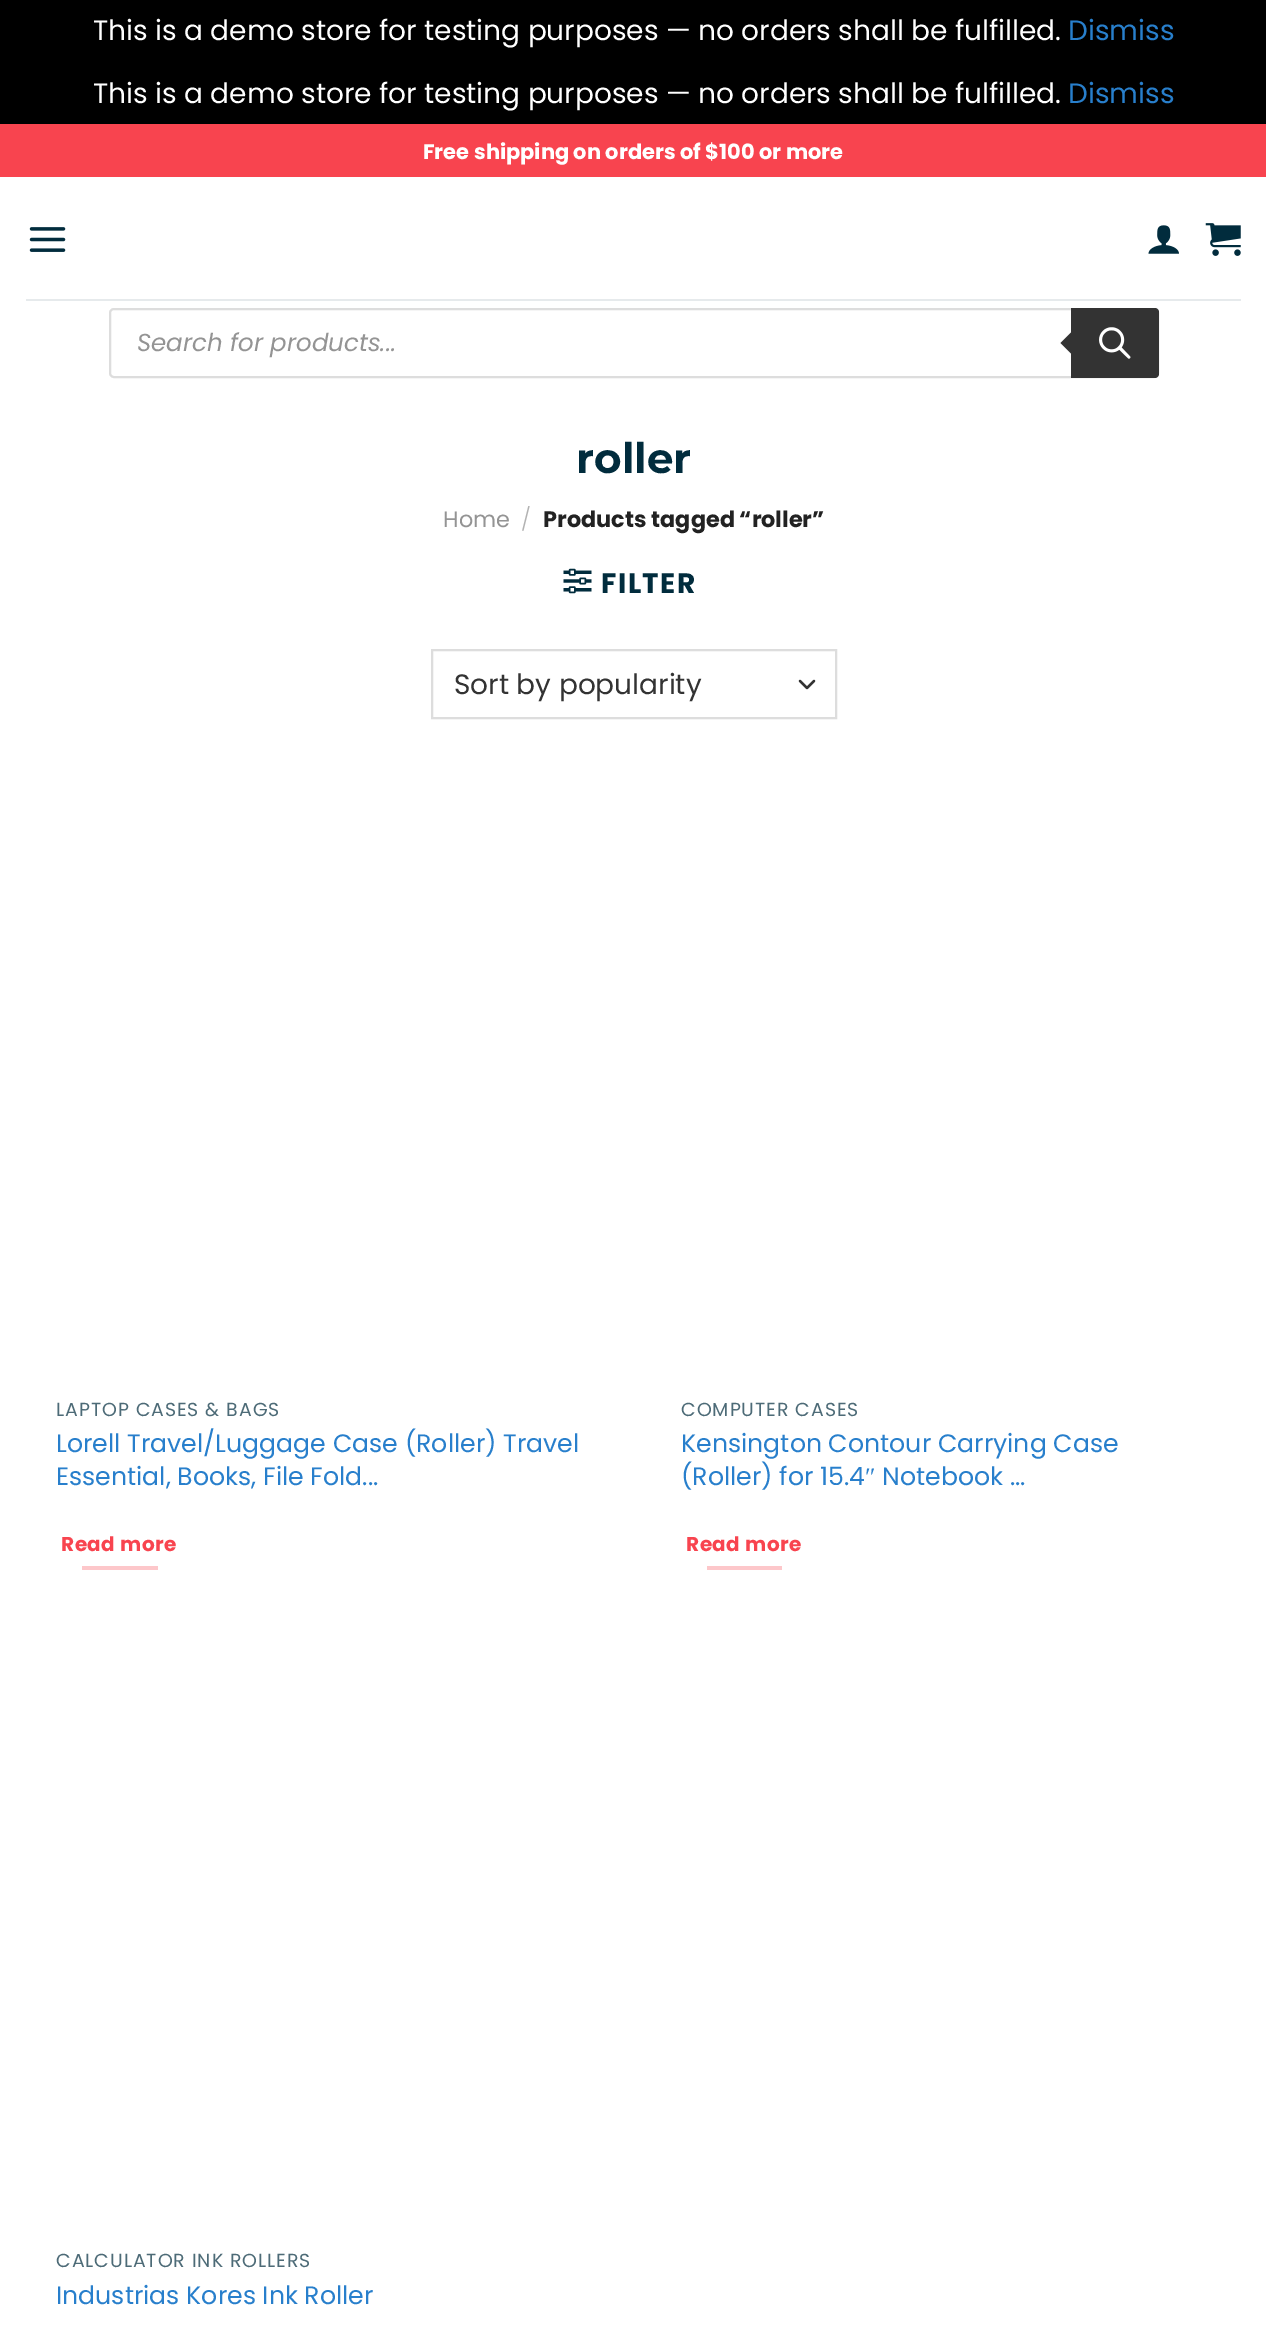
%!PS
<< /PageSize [1266 2333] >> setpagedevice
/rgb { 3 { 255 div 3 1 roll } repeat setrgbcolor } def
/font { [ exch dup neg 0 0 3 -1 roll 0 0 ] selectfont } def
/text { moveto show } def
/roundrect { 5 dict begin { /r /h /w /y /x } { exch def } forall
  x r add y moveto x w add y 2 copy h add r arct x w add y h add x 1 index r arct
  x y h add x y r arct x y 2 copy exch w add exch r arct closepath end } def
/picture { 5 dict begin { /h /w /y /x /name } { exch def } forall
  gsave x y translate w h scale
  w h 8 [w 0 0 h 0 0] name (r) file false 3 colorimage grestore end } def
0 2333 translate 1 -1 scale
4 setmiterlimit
255 255 255 rgb
0 0 1266 2333 rectfill
0 0 0 rgb
0 0 1266 124 rectfill
248 68 79 rgb
0 124 1266 53 rectfill
(img_01.rgb) 29 227 37 25 picture
(img_02.rgb) 1148 225 31 29 picture
(img_03.rgb) 1205 223 36 33 picture
230 234 236 rgb
26 299 1215 2 rectfill
221 221 221 rgb
2 setlinewidth
110 309 1048 68 4 roundrect stroke
51 51 51 rgb
1071 308 moveto 84 0 rlineto 2 0 4 2 4 4 rcurveto 0 62 rlineto 0 2 -2 4 -4 4 rcurveto -84 0 rlineto closepath fill
1074.5 329 moveto 0 28 rlineto -14 -14 rlineto closepath fill
(img_04.rgb) 1099 327 32 32 picture
(img_05.rgb) 563 568 29 26 picture
2.3 setlinewidth
1 setlinecap
1 setlinejoin
800 681 moveto 7 7 rlineto 7 -7 rlineto stroke
221 221 221 rgb
2 setlinewidth
0 setlinecap
0 setlinejoin
432 650 404 68 rectstroke
253 199 202 rgb
82 1566 76 4 rectfill
707 1566 75 4 rectfill
/Poppins-Regular 28 font
255 255 255 rgb
(This is a demo store for testing purposes — no orders shall be fulfilled.) 93 40 text
40 127 204 rgb
(Dismiss) 1068 40 text
255 255 255 rgb
(This is a demo store for testing purposes — no orders shall be fulfilled.) 93 103 text
40 127 204 rgb
(Dismiss) 1068 103 text
/Poppins-Bold 21 font
255 255 255 rgb
(Free shipping on orders of $100 or more) 423 159 text
/Poppins-Italic 24.5 font
148 148 148 rgb
(Search for products...) 137 351 text
/Montserrat-Bold 42 font
1 44 61 rgb
(roller) 576 473 text
/Poppins-Regular 22.4 font
148 148 148 rgb
(Home) 443 527 text
/Poppins-Light 22.4 font
178 178 178 rgb
(/) 521 527 text
/Poppins-Bold 22.4 font
34 34 34 rgb
(Products tagged “roller”) 543 527 text
/Poppins-Bold 28 font
1 44 61 rgb
601 593 moveto 1.5 0 (FILTER) ashow
/Poppins-Regular 28 font
51 51 51 rgb
(Sort by popularity) 454 694 text
/Poppins-Regular 18.9 font
77 107 119 rgb
56 1416 moveto 0.95 0 (LAPTOP CASES & BAGS) ashow
/Poppins-Regular 25.2 font
40 127 204 rgb
(Lorell Travel/Luggage Case \(Roller\) Travel) 56 1452 text
(Essential, Books, File Fold...) 56 1485 text
/Poppins-Bold 20 font
248 68 79 rgb
61 1551 moveto 0.5 0 (Read more) ashow
/Poppins-Regular 18.9 font
77 107 119 rgb
681 1416 moveto 0.95 0 (COMPUTER CASES) ashow
/Poppins-Regular 25.2 font
40 127 204 rgb
(Kensington Contour Carrying Case) 681 1452 text
(\(Roller\) for 15.4) 681 1485 text
/LiberationSerif-Regular 25.2 font
(″) 865 1485 text
/Poppins-Regular 25.2 font
(Notebook ...) 882 1485 text
/Poppins-Bold 20 font
248 68 79 rgb
686 1551 moveto 0.5 0 (Read more) ashow
/Poppins-Regular 18.9 font
77 107 119 rgb
56 2267 moveto 0.95 0 (CALCULATOR INK ROLLERS) ashow
/Poppins-Regular 25.2 font
40 127 204 rgb
(Industrias Kores Ink Roller) 56 2304 text
showpage
